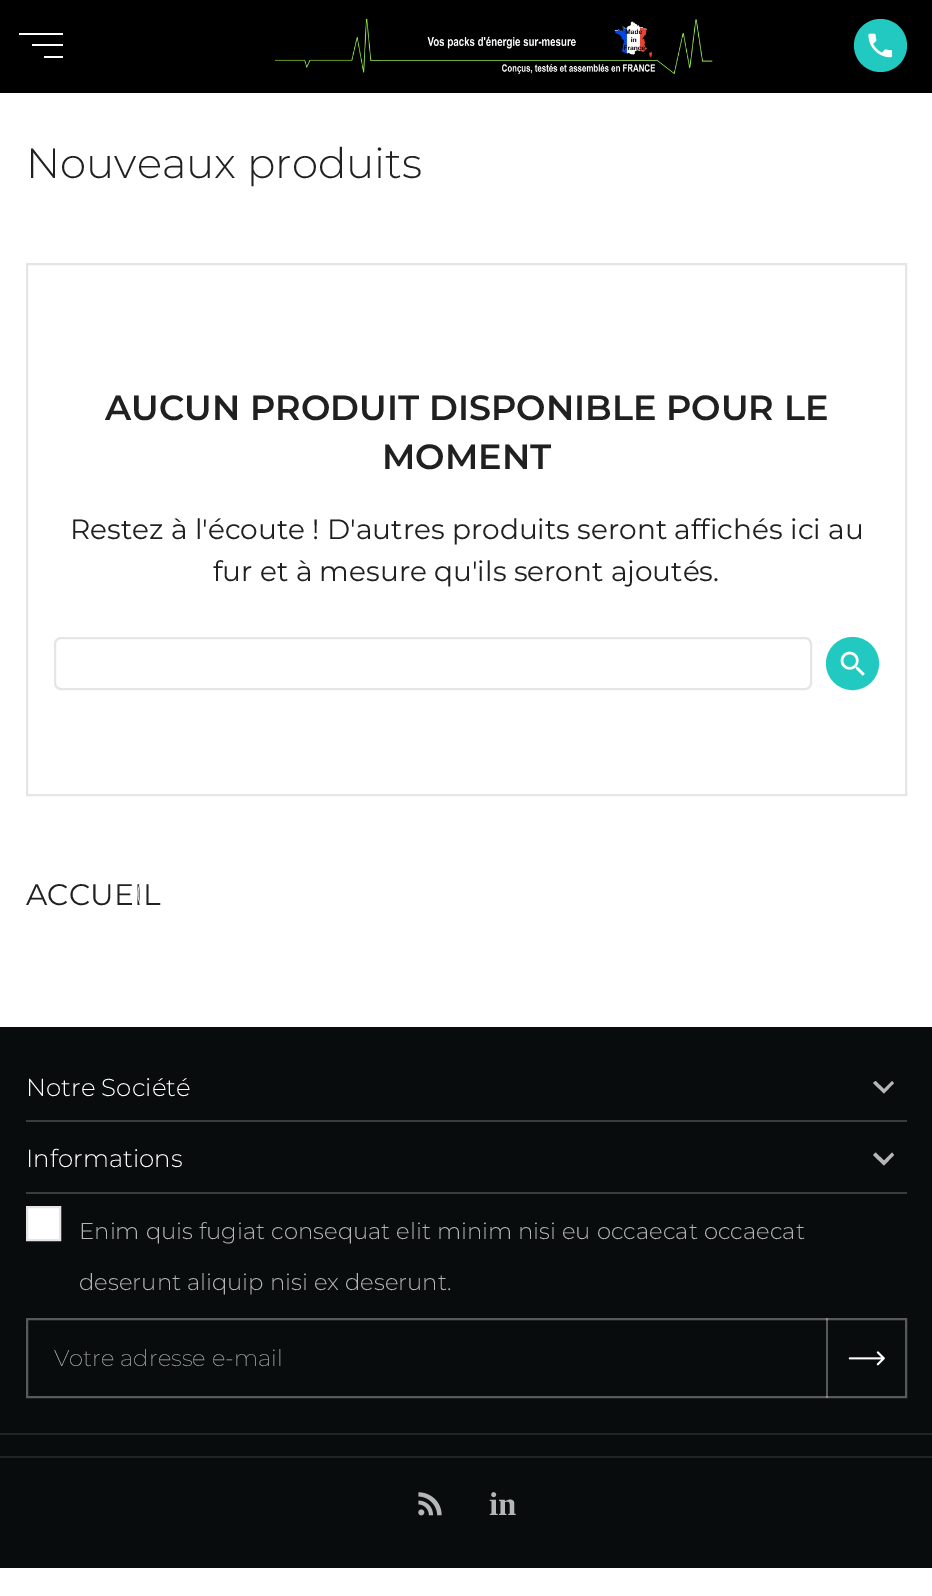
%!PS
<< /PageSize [932 1596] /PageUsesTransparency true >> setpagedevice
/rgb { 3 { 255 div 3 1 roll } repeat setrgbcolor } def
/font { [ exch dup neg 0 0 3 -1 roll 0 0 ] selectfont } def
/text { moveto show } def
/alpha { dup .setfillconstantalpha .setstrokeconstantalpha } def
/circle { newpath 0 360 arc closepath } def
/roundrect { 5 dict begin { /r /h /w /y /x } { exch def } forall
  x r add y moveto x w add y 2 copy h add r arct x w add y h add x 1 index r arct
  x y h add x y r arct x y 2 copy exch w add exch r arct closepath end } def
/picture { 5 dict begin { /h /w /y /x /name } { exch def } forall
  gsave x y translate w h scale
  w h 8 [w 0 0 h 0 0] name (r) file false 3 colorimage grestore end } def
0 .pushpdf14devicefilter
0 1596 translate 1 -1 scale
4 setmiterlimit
255 255 255 rgb
0 0 932 1596 rectfill
0 0 0 rgb
0 0 932 93 rectfill
255 255 255 rgb
19 33 44 2 rectfill
32 44 31 2 rectfill
44 56 19 2 rectfill
(img_01.rgb) 275 18 438 57 picture
33 201 192 rgb
880.5 45.5 26.5 circle fill
(img_02.rgb) 868 33 25 25 picture
229 229 229 rgb
2 setlinewidth
27 264 879 531 rectstroke
55 638 756 51 6 roundrect stroke
33 201 192 rgb
852.5 663.5 24.5 circle gsave fill grestore
4 setlinewidth
stroke
(img_03.rgb) 840 651 25 25 picture
9 12 12 rgb
0 1027 932 541 rectfill
58 61 61 rgb
26 1120 881 2 rectfill
181 182 182 rgb
875.5 1081 moveto 8.5 8 rlineto 8 -8 rlineto 2 2 rlineto -10 10.5 rlineto -11 -10.5 rlineto closepath fill
58 61 61 rgb
26 1192 881 2 rectfill
181 182 182 rgb
875.5 1152.5 moveto 8.5 8 rlineto 8 -8 rlineto 2 2.5 rlineto -10 10.5 rlineto -11 -10.5 rlineto closepath fill
255 255 255 rgb
27 1207 moveto 33 0 rlineto 0 33 rlineto -33 0 rlineto closepath gsave fill grestore
229 229 229 rgb
2 setlinewidth
stroke
88 90 90 rgb
27 1319 879 78 rectstroke
0.32 alpha
255 255 255 rgb
826 1318 2 80 rectfill
1 alpha
(img_04.rgb) 848 1351 37 15 picture
34 36 36 rgb
0 1433 932 2 rectfill
0 1456 932 2 rectfill
(img_05.rgb) 418 1492 24 24 picture
/Montserrat-Light 42 font
32 32 32 rgb
(Nouveaux produits) 26 178 text
/Montserrat-SemiBold 35 font
(AUCUN PRODUIT DISPONIBLE POUR LE) 105 420 text
(MOMENT) 382 469 text
/Montserrat-Regular 28 font
(Restez à l'écoute ! D'autres produits seront affichés ici au) 70 539 text
(fur et à mesure qu'ils seront ajoutés.) 213 581 text
/Montserrat-Regular 29.75 font
(ACCUEIL) 26 905 text
/Montserrat-Light 22.75 font
241 241 241 rgb
(\() 135 900 text
/Montserrat-Light 24.5 font
255 255 255 rgb
(Notre Société) 26 1096 text
(Informations) 26 1167 text
/Montserrat-Light 22.75 font
181 182 182 rgb
(Enim quis fugiat consequat elit minim nisi eu occaecat occaecat) 79 1239 text
(deserunt aliquip nisi ex deserunt.) 79 1290 text
/Montserrat-ExtraLight 22.75 font
(Votre adresse e-mail) 54 1366 text
/LiberationSerif-Bold 33 font
(in) 489 1515 text
.poppdf14devicefilter showpage
